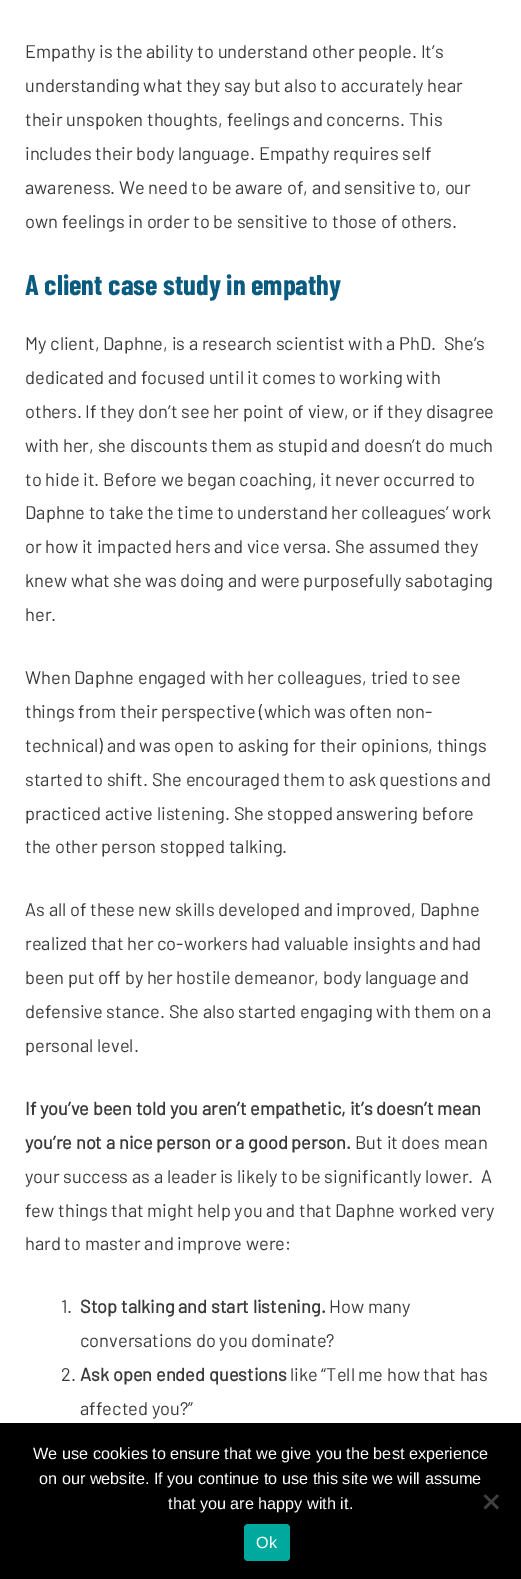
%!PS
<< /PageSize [521 1579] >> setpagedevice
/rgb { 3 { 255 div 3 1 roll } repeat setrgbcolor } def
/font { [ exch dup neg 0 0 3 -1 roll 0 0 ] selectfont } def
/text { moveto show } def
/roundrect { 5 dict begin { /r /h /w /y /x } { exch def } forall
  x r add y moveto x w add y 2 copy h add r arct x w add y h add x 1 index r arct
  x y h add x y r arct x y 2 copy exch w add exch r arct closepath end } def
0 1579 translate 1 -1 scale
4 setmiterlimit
255 255 255 rgb
0 0 521 1579 rectfill
0 0 0 rgb
0 1423 521 156 rectfill
64 64 64 rgb
497 1494.5 moveto 2 1.5 rlineto -13.5 13.5 rlineto -2 -2 rlineto closepath fill
483.5 1496 moveto 2 -1.5 rlineto 13.5 13 rlineto -2 2 rlineto closepath fill
0 169 157 rgb
244 1524 46 37 4 roundrect fill
/Barlow-Regular 18.25 font
58 58 58 rgb
(Empathy is the ability to understand other people. It’s) 25 58 text
(understanding what they say but also to accurately hear) 25 92 text
(their unspoken thoughts, feelings and concerns. This) 25 126 text
(includes their body language. Empathy requires self) 25 160 text
(awareness. We need to be aware of, and sensitive to, our) 25 194 text
(own feelings in order to be sensitive to those of others.) 25 228 text
/BarlowCondensed-Bold 28.5 font
10 91 128 rgb
(A client case study in empathy) 25 295 text
/Barlow-Regular 18.25 font
58 58 58 rgb
(My client, Daphne, is a research scientist with a PhD.  She’s) 25 350 text
(dedicated and focused until it comes to working with) 25 384 text
(others. If they don’t see her point of view, or if they disagree) 25 418 text
(with her, she discounts them as stupid and doesn’t do much) 25 452 text
(to hide it. Before we began coaching, it never occurred to) 25 486 text
(Daphne to take the time to understand her colleagues’ work) 25 519 text
(or how it impacted hers and vice versa. She assumed they) 25 553 text
(knew what she was doing and were purposefully sabotaging) 25 587 text
(her.) 25 621 text
(When Daphne engaged with her colleagues, tried to see) 25 684 text
(things from their perspective \(which was often non-) 25 718 text
(technical\) and was open to asking for their opinions, things) 25 752 text
(started to shift. She encouraged them to ask questions and) 25 786 text
(practiced active listening. She stopped answering before) 25 820 text
(the other person stopped talking.) 25 853 text
(As all of these new skills developed and improved, Daphne) 25 916 text
(realized that her co-workers had valuable insights and had) 25 950 text
(been put off by her hostile demeanor, body language and) 25 984 text
(defensive stance. She also started engaging with them on a) 25 1018 text
(personal level.) 25 1052 text
/Barlow-Bold 18.25 font
(If you’ve been told you aren’t empathetic, it’s doesn’t mean) 25 1115 text
(you’re not a nice person or a good person.) 25 1149 text
/Barlow-Regular 18.25 font
(But it does mean) 355 1149 text
(your success as a leader is likely to be significantly lower.  A) 25 1183 text
(few things that might help you and that Daphne worked very) 25 1217 text
(hard to master and improve were:) 25 1250 text
(1.) 61 1313 text
/Barlow-Bold 18.25 font
(Stop talking and start listening.) 80 1313 text
/Barlow-Regular 18.25 font
(How many) 329 1313 text
(conversations do you dominate?) 80 1347 text
(2.) 61 1381 text
/Barlow-Bold 18.25 font
(Ask open ended questions) 80 1381 text
/Barlow-Regular 18.25 font
(like “Tell me how that has) 290 1381 text
(affected you?”) 80 1415 text
/LiberationSans-Regular 16.25 font
255 255 255 rgb
(We use cookies to ensure that we give you the best experience) 33 1459 text
(on our website. If you continue to use this site we will assume) 39 1484 text
(that you are happy with it.) 168 1509 text
(Ok) 256 1548 text
showpage
